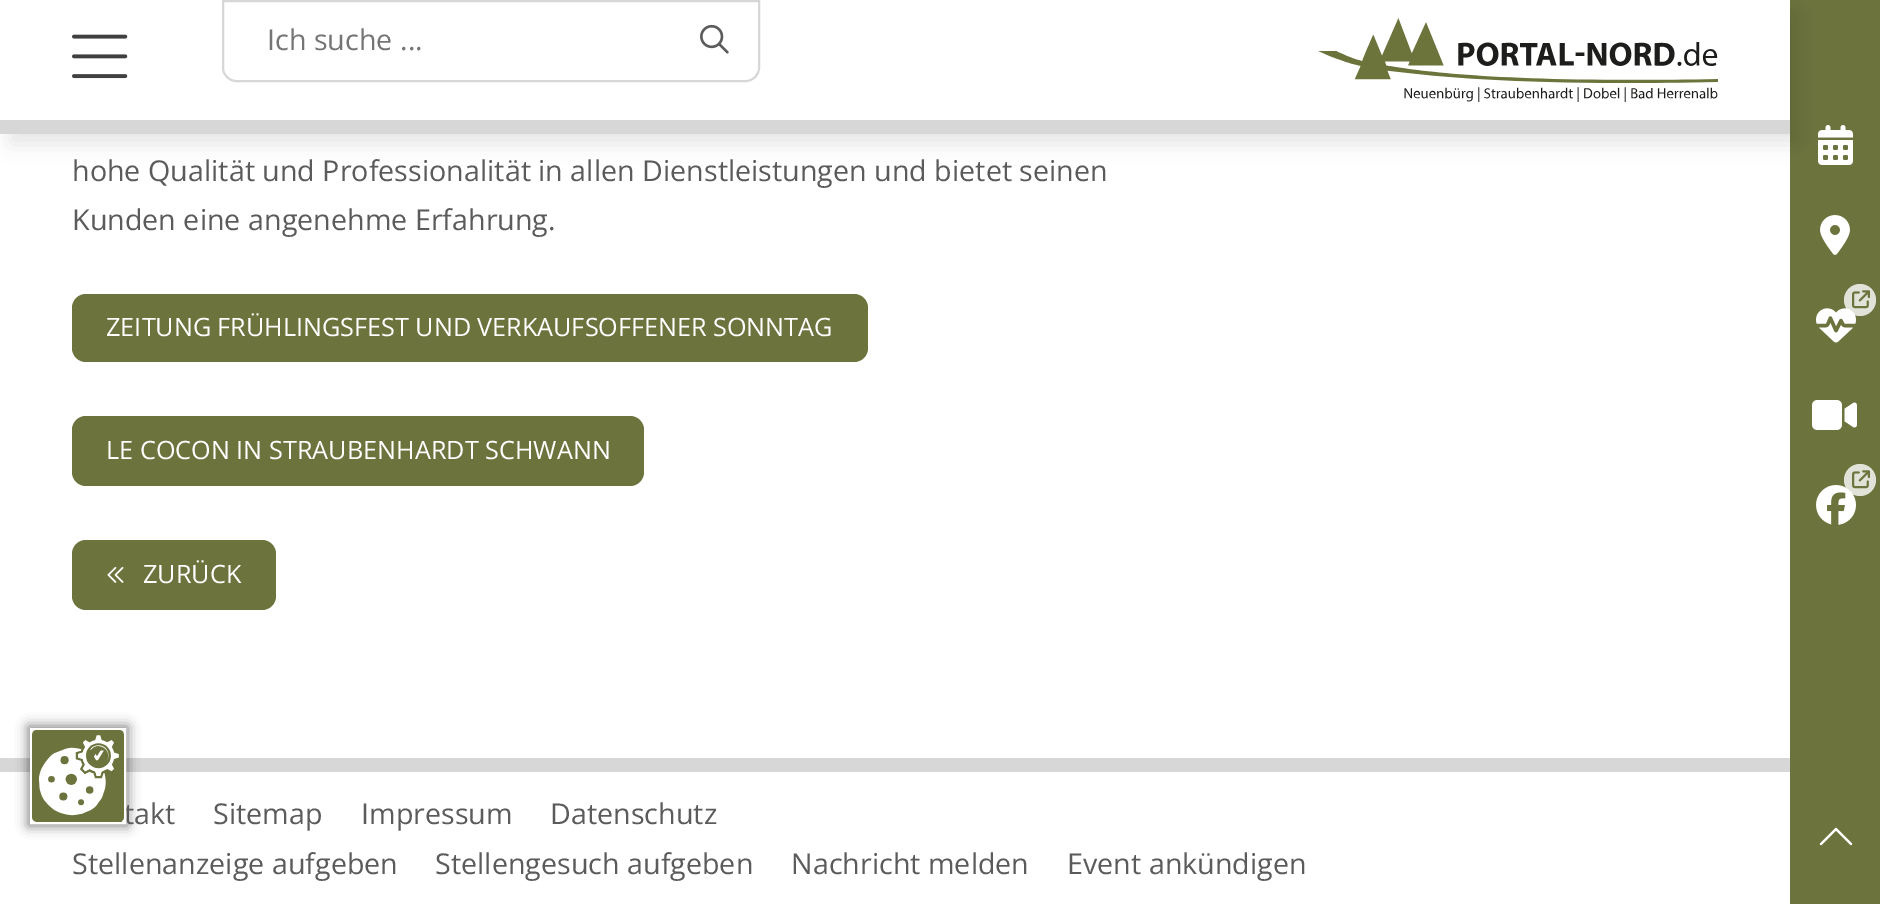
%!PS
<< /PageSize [1880 904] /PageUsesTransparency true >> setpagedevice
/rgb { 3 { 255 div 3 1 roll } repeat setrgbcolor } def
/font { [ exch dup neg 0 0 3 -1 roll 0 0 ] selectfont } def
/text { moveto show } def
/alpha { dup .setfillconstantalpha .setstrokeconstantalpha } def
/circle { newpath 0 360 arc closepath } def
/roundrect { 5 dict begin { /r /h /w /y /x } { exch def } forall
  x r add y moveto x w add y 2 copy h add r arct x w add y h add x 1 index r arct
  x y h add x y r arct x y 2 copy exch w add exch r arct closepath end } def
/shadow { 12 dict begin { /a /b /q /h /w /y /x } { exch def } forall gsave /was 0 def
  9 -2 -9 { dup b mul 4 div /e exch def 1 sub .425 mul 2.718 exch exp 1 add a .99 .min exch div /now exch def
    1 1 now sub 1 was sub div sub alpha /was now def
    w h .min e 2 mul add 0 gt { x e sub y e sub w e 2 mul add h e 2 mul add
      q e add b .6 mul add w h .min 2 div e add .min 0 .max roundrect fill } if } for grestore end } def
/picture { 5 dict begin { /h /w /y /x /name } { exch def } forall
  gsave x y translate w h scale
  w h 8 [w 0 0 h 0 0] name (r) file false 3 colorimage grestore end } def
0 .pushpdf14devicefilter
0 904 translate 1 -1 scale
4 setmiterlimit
255 255 255 rgb
0 0 1880 904 rectfill
108 115 61 rgb
1790 0 90 904 rectfill
(img_05.rgb) 1818 125 35 40 picture
0 0 0 rgb
10 10 1790 134 0 10 0.1 shadow
255 255 255 rgb
0 0 1790 120 rectfill
215 215 215 rgb
0 120 1790 14 rectfill
(img_01.rgb) 72 34 56 45 picture
2 setlinewidth
223 1 moveto 536 0 rlineto 0 67 rlineto 0 7 -6 13 -13 13 rcurveto -510 0 rlineto -7 0 -13 -6 -13 -13 rcurveto closepath stroke
(img_02.rgb) 700 24 29 30 picture
(img_03.rgb) 1318 18 400 84 picture
108 115 61 rgb
72 294 796 68 14 roundrect fill
72 416 572 70 14 roundrect fill
72 540 204 70 14 roundrect fill
(img_04.rgb) 107 567 17 16 picture
215 215 215 rgb
0 758 1790 14 rectfill
(img_06.rgb) 1820 215 30 40 picture
(img_08.rgb) 1816 308 40 35 picture
0.8 alpha
255 255 255 rgb
1860 300 16 circle fill
1 alpha
(img_07.rgb) 1852 290 18 19 picture
(img_09.rgb) 1812 400 45 30 picture
(img_10.rgb) 1816 485 40 40 picture
0.8 alpha
1860 480 16 circle fill
1 alpha
(img_07.rgb) 1852 470 18 19 picture
(img_11.rgb) 1819 827 34 19 picture
0 0 0 rgb
28 726 100 100 0 6 0.5 shadow
/OpenSans-Regular 28.7 font
117 117 117 rgb
(Ich suche ...) 267 50 text
91 91 91 rgb
(hohe Qualität und Professionalität in allen Dienstleistungen und bietet seinen) 72 181 text
(Kunden eine angenehme Erfahrung.) 72 230 text
/OpenSans-Regular 25.25 font
255 255 255 rgb
106 336 moveto -0.5 0 32 (ZEITUNG FRÜHLINGSFEST UND VERKAUFSOFFENER SONNTAG) widthshow
(LE COCON IN STRAUBENHARDT SCHWANN) 106 459 text
(ZURÜCK) 143 583 text
/OpenSans-Regular 28.7 font
91 91 91 rgb
(takt) 124 824 text
(Sitemap) 213 824 text
(Impressum) 361 824 text
(Datenschutz) 550 824 text
(Stellenanzeige aufgeben) 72 874 text
(Stellengesuch aufgeben) 435 874 text
(Nachricht melden) 791 874 text
(Event ankündigen) 1067 874 text
255 255 255 rgb
31 729 94 94 rectstroke
(img_12.rgb) 32 730 92 92 picture
.poppdf14devicefilter showpage
